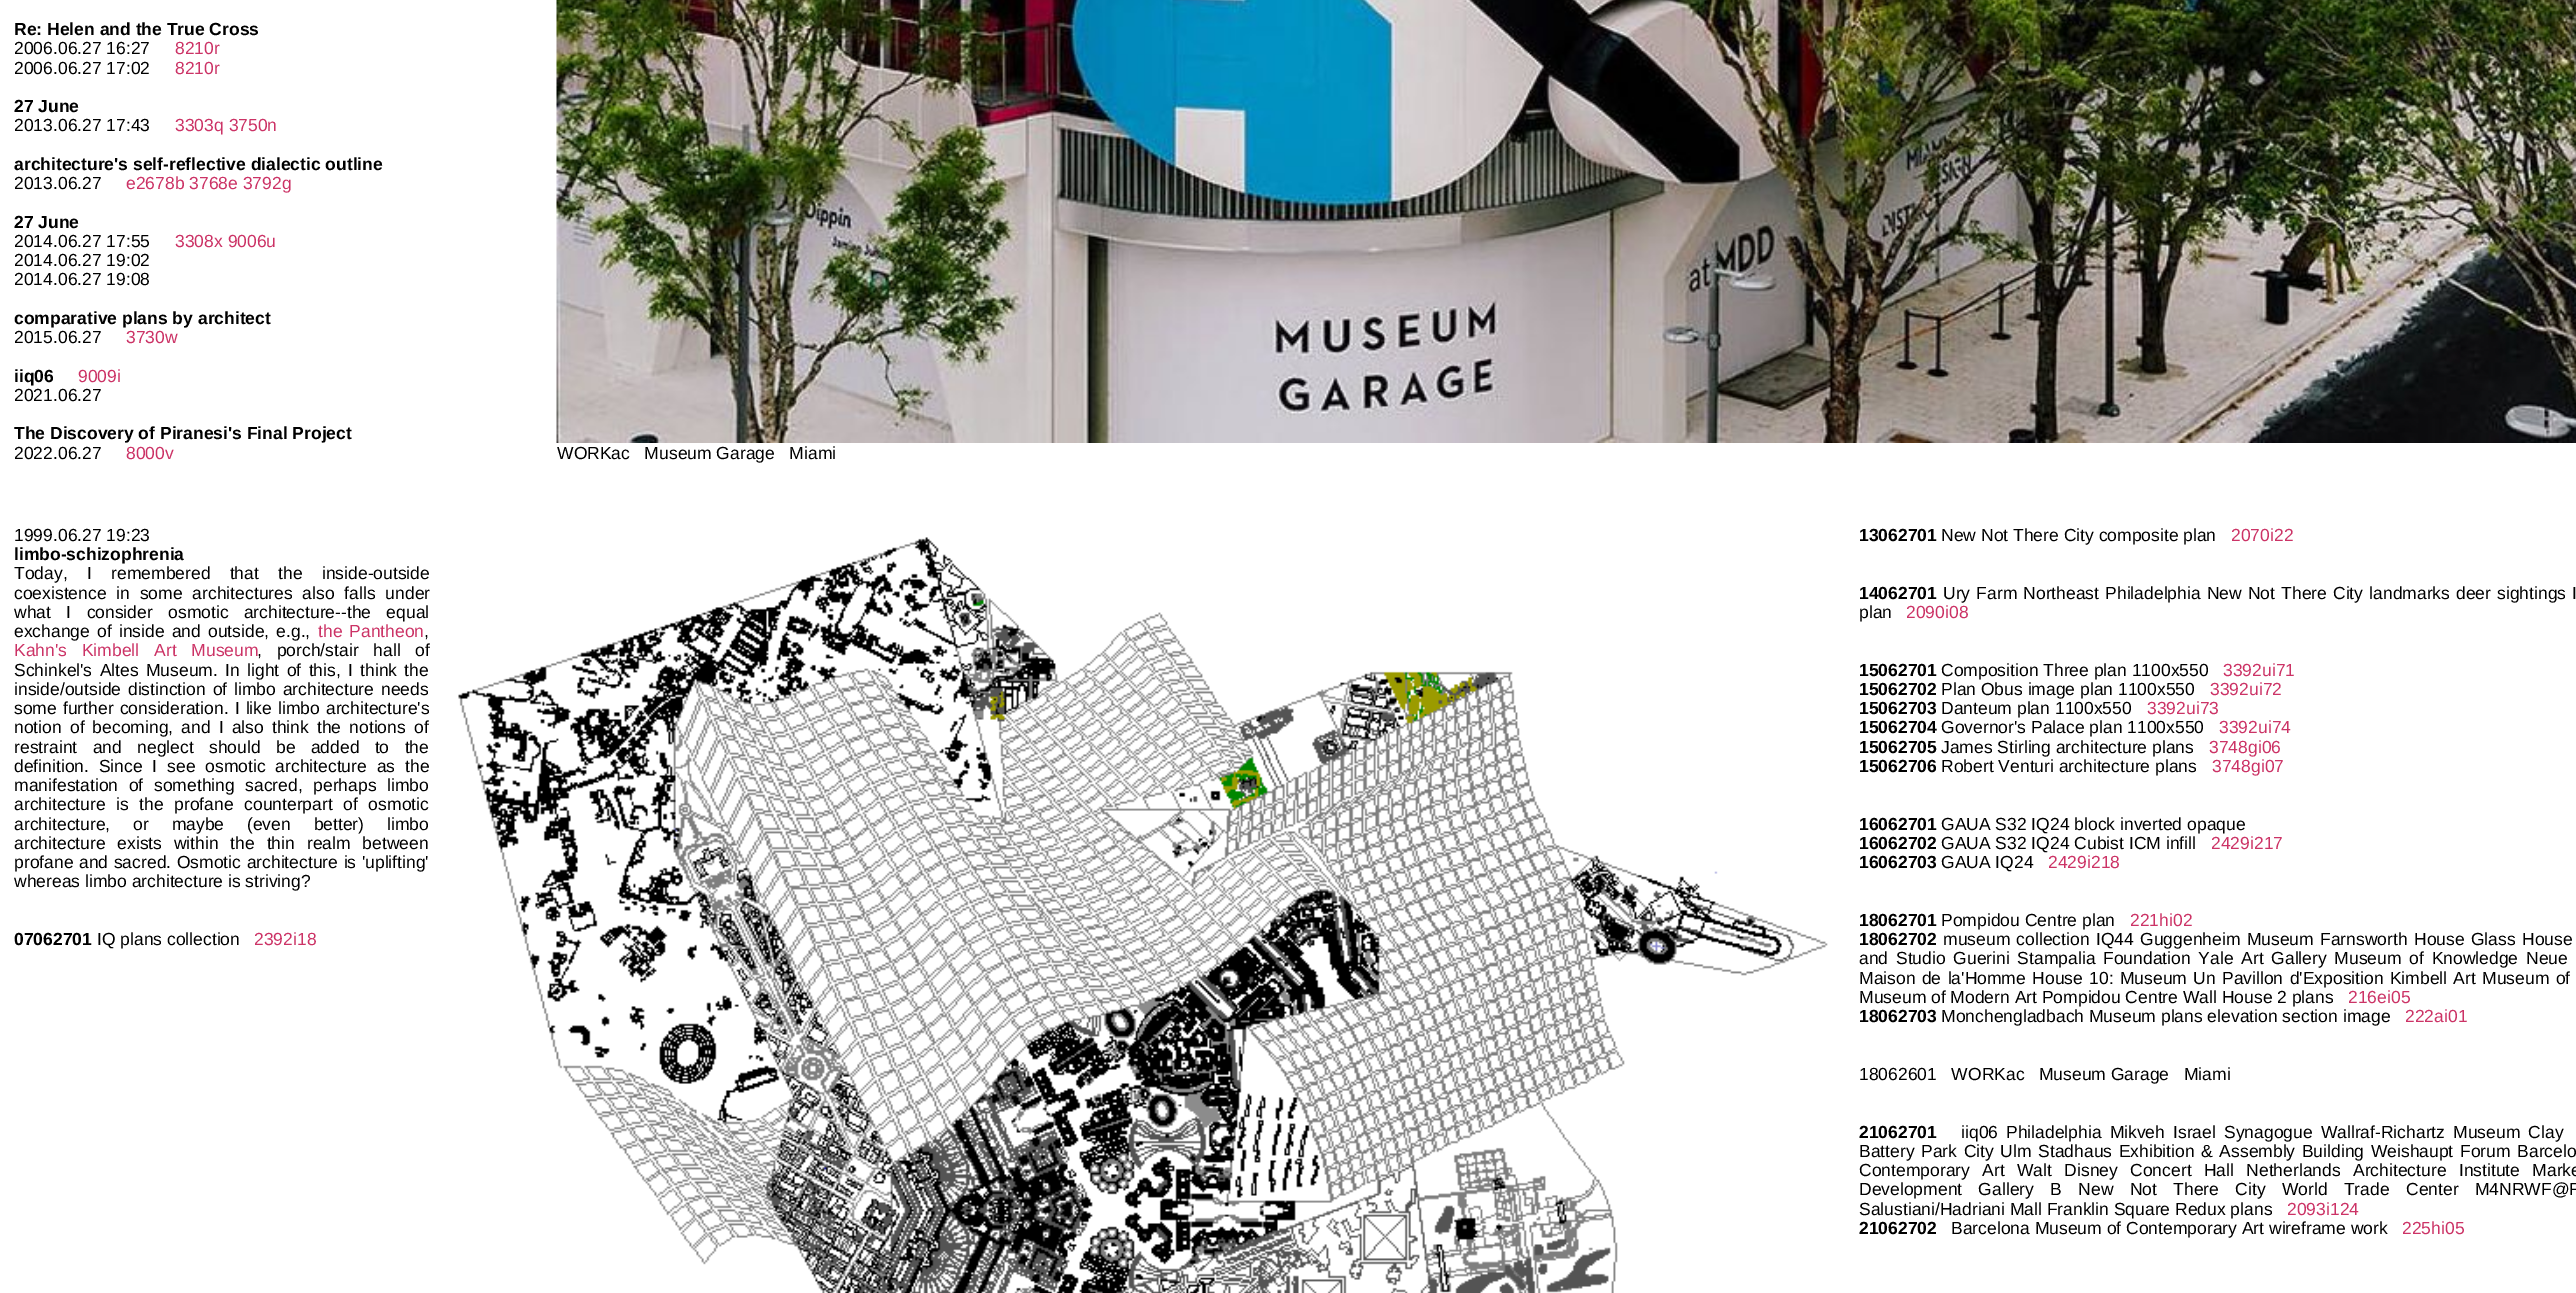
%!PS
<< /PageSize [2576 1293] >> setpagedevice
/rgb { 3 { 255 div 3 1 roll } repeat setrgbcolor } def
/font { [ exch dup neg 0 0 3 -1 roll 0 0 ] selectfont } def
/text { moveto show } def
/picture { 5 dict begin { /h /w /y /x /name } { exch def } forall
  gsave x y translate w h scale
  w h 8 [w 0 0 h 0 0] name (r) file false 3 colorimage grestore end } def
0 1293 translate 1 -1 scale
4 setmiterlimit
255 255 255 rgb
0 0 2576 1293 rectfill
(img_01.rgb) 556 0 2020 443 picture
(img_02.rgb) 458 537 1370 756 picture
/LiberationSans-Bold 17.5 font
0 0 0 rgb
(Re: Helen and the True Cross) 14 35 text
/LiberationSans-Regular 17.5 font
(2006.06.27 16:27) 14 54 text
204 51 102 rgb
(8210r) 175 54 text
0 0 0 rgb
(2006.06.27 17:02) 14 74 text
204 51 102 rgb
(8210r) 175 74 text
/LiberationSans-Bold 17.5 font
0 0 0 rgb
(27 June) 14 112 text
/LiberationSans-Regular 17.5 font
(2013.06.27 17:43) 14 131 text
204 51 102 rgb
(3303q 3750n) 175 131 text
/LiberationSans-Bold 17.5 font
0 0 0 rgb
(architecture's self-reflective dialectic outline) 14 170 text
/LiberationSans-Regular 17.5 font
(2013.06.27) 14 189 text
204 51 102 rgb
(e2678b 3768e 3792g) 126 189 text
/LiberationSans-Bold 17.5 font
0 0 0 rgb
(27 June) 14 228 text
/LiberationSans-Regular 17.5 font
(2014.06.27 17:55) 14 247 text
204 51 102 rgb
(3308x 9006u) 175 247 text
0 0 0 rgb
(2014.06.27 19:02) 14 266 text
(2014.06.27 19:08) 14 285 text
/LiberationSans-Bold 17.5 font
(comparative plans by architect) 14 324 text
/LiberationSans-Regular 17.5 font
(2015.06.27) 14 343 text
204 51 102 rgb
(3730w) 126 343 text
/LiberationSans-Bold 17.5 font
0 0 0 rgb
(iiq06) 14 382 text
/LiberationSans-Regular 17.5 font
204 51 102 rgb
(9009i) 78 382 text
0 0 0 rgb
(2021.06.27) 14 401 text
/LiberationSans-Bold 17.5 font
(The Discovery of Piranesi's Final Project) 14 439 text
/LiberationSans-Regular 17.5 font
(2022.06.27) 14 459 text
204 51 102 rgb
(8000v) 126 459 text
0 0 0 rgb
(WORKac   Museum Garage   Miami) 557 459 text
(1999.06.27 19:23) 14 541 text
/LiberationSans-Bold 17.5 font
(limbo-schizophrenia) 14 560 text
/LiberationSans-Regular 17.5 font
14 579 moveto 14.5 0 32 (Today, I remembered that the inside-outside) widthshow
14 599 moveto 5 0 32 (coexistence in some architectures also falls under) widthshow
14 618 moveto 10.5 0 32 (what I consider osmotic architecture--the equal) widthshow
14 637 moveto 2.25 0 32 (exchange of inside and outside, e.g.,) widthshow
204 51 102 rgb
318 637 moveto 2 0 32 (the Pantheon) widthshow
0 0 0 rgb
(,) 424 637 text
204 51 102 rgb
14 656 moveto 10 0 32 (Kahn's Kimbell Art Museum) widthshow
0 0 0 rgb
257 656 moveto 10 0 32 (, porch/stair hall of) widthshow
14 676 moveto 2.5 0 32 (Schinkel's Altes Museum. In light of this, I think the) widthshow
14 695 moveto 2 0 32 (inside/outside distinction of limbo architecture needs) widthshow
14 714 moveto 1.25 0 32 (some further consideration. I like limbo architecture's) widthshow
14 733 moveto 3.25 0 32 (notion of becoming, and I also think the notions of) widthshow
14 753 moveto 10.5 0 32 (restraint and neglect should be added to the) widthshow
14 772 moveto 5 0 32 (definition. Since I see osmotic architecture as the) widthshow
14 791 moveto 5.75 0 32 (manifestation of something sacred, perhaps limbo) widthshow
14 810 moveto 5.75 0 32 (architecture is the profane counterpart of osmotic) widthshow
14 830 moveto 18 0 32 (architecture, or maybe \(even better\) limbo) widthshow
14 849 moveto 7 0 32 (architecture exists within the thin realm between) widthshow
14 868 moveto 0.75 0 32 (profane and sacred. Osmotic architecture is 'uplifting') widthshow
(whereas limbo architecture is striving?) 14 887 text
/LiberationSans-Bold 17.5 font
(07062701) 14 945 text
/LiberationSans-Regular 17.5 font
(IQ plans collection) 97 945 text
204 51 102 rgb
(2392i18) 254 945 text
/LiberationSans-Bold 17.5 font
0 0 0 rgb
(13062701) 1859 541 text
/LiberationSans-Regular 17.5 font
(New Not There City composite plan) 1941 541 text
204 51 102 rgb
(2070i22) 2231 541 text
/LiberationSans-Bold 17.5 font
0 0 0 rgb
(14062701) 1859 599 text
/LiberationSans-Regular 17.5 font
1943 599 moveto 1.25 0 32 (Ury Farm Northeast Philadelphia New Not There City landmarks deer sightings I) widthshow
(plan) 1859 618 text
204 51 102 rgb
(2090i08) 1906 618 text
/LiberationSans-Bold 17.5 font
0 0 0 rgb
(15062701) 1859 676 text
/LiberationSans-Regular 17.5 font
(Composition Three plan 1100x550) 1941 676 text
204 51 102 rgb
(3392ui71) 2223 676 text
/LiberationSans-Bold 17.5 font
0 0 0 rgb
(15062702) 1859 695 text
/LiberationSans-Regular 17.5 font
(Plan Obus image plan 1100x550) 1941 695 text
204 51 102 rgb
(3392ui72) 2210 695 text
/LiberationSans-Bold 17.5 font
0 0 0 rgb
(15062703) 1859 714 text
/LiberationSans-Regular 17.5 font
(Danteum plan 1100x550) 1941 714 text
204 51 102 rgb
(3392ui73) 2147 714 text
/LiberationSans-Bold 17.5 font
0 0 0 rgb
(15062704) 1859 733 text
/LiberationSans-Regular 17.5 font
(Governor's Palace plan 1100x550) 1941 733 text
204 51 102 rgb
(3392ui74) 2219 733 text
/LiberationSans-Bold 17.5 font
0 0 0 rgb
(15062705) 1859 753 text
/LiberationSans-Regular 17.5 font
(James Stirling architecture plans) 1941 753 text
204 51 102 rgb
(3748gi06) 2209 753 text
/LiberationSans-Bold 17.5 font
0 0 0 rgb
(15062706) 1859 772 text
/LiberationSans-Regular 17.5 font
(Robert Venturi architecture plans) 1941 772 text
204 51 102 rgb
(3748gi07) 2212 772 text
/LiberationSans-Bold 17.5 font
0 0 0 rgb
(16062701) 1859 830 text
/LiberationSans-Regular 17.5 font
(GAUA S32 IQ24 block inverted opaque) 1941 830 text
/LiberationSans-Bold 17.5 font
(16062702) 1859 849 text
/LiberationSans-Regular 17.5 font
(GAUA S32 IQ24 Cubist ICM infill) 1941 849 text
204 51 102 rgb
(2429i217) 2211 849 text
/LiberationSans-Bold 17.5 font
0 0 0 rgb
(16062703) 1859 868 text
/LiberationSans-Regular 17.5 font
(GAUA IQ24) 1941 868 text
204 51 102 rgb
(2429i218) 2048 868 text
/LiberationSans-Bold 17.5 font
0 0 0 rgb
(18062701) 1859 926 text
/LiberationSans-Regular 17.5 font
(Pompidou Centre plan) 1941 926 text
204 51 102 rgb
(221hi02) 2130 926 text
/LiberationSans-Bold 17.5 font
0 0 0 rgb
(18062702) 1859 945 text
/LiberationSans-Regular 17.5 font
1943 945 moveto 1.5 0 32 (museum collection IQ44 Guggenheim Museum Farnsworth House Glass House) widthshow
1859 964 moveto 2.9 0 32 (and Studio Guerini Stampalia Foundation Yale Art Gallery Museum of Knowledge Neue) widthshow
1859 984 moveto 1.5 0 32 (Maison de la'Homme House 10: Museum Un Pavillon d'Exposition Kimbell Art Museum of) widthshow
(Museum of Modern Art Pompidou Centre Wall House 2 plans) 1859 1003 text
204 51 102 rgb
(216ei05) 2348 1003 text
/LiberationSans-Bold 17.5 font
0 0 0 rgb
(18062703) 1859 1022 text
/LiberationSans-Regular 17.5 font
(Monchengladbach Museum plans elevation section image) 1941 1022 text
204 51 102 rgb
(222ai01) 2405 1022 text
0 0 0 rgb
(18062601   WORKac   Museum Garage   Miami) 1859 1080 text
/LiberationSans-Bold 17.5 font
(21062701) 1859 1138 text
/LiberationSans-Regular 17.5 font
1961 1138 moveto 3.25 0 32 (iiq06 Philadelphia Mikveh Israel Synagogue Wallraf-Richartz Museum Clay) widthshow
1859 1157 moveto 1.75 0 32 (Battery Park City Ulm Stadhaus Exhibition & Assembly Building Weishaupt Forum Barcelo) widthshow
1859 1176 moveto 7.5 0 32 (Contemporary Art Walt Disney Concert Hall Netherlands Architecture Institute Marke) widthshow
1859 1195 moveto 11.5 0 32 (Development Gallery B New Not There City World Trade Center M4NRWF@F) widthshow
(Salustiani/Hadriani Mall Franklin Square Redux plans) 1859 1215 text
204 51 102 rgb
(2093i124) 2287 1215 text
/LiberationSans-Bold 17.5 font
0 0 0 rgb
(21062702) 1859 1234 text
/LiberationSans-Regular 17.5 font
(Barcelona Museum of Contemporary Art wireframe work) 1951 1234 text
204 51 102 rgb
(225hi05) 2402 1234 text
showpage
